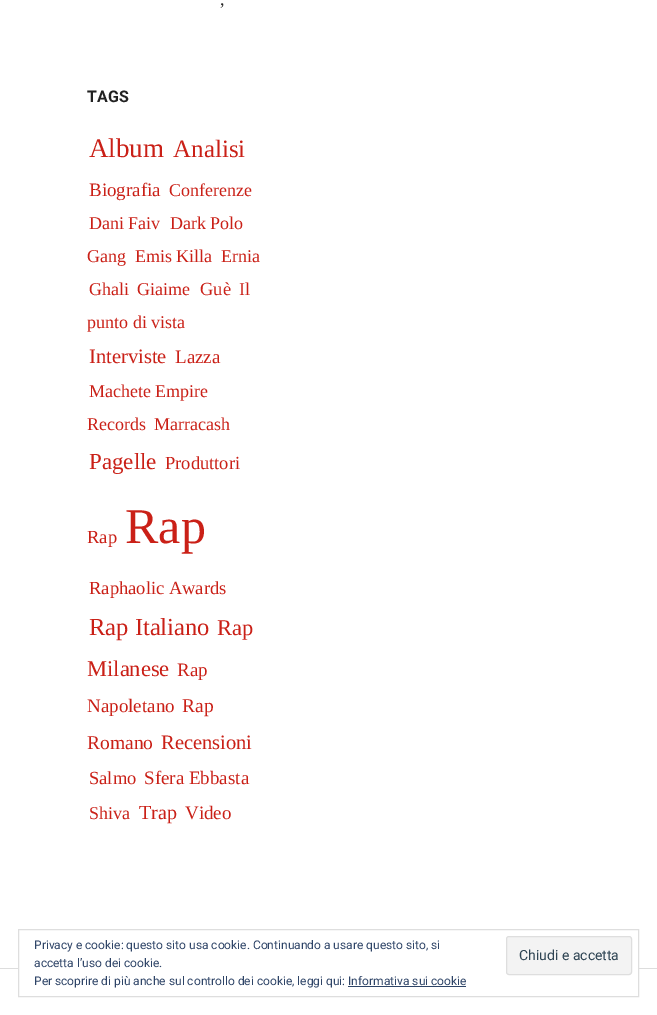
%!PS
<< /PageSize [657 1015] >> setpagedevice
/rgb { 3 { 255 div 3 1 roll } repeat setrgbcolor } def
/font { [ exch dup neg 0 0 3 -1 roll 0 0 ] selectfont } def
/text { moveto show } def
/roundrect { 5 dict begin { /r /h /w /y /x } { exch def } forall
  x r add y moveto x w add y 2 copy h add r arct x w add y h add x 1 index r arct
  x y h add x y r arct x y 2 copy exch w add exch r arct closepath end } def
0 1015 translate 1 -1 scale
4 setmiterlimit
255 255 255 rgb
0 0 657 1015 rectfill
221 221 221 rgb
0 968 657 1 rectfill
255 255 255 rgb
19 968 619 1 rectfill
222 222 222 rgb
18.5 929.5 620 67 rectstroke
243 243 243 rgb
506.5 936.5 125 38 2.5 roundrect gsave fill grestore
222 222 222 rgb
stroke
46 68 103 rgb
348 986 118 1 rectfill
/LiberationSerif-Regular 18 font
34 34 34 rgb
(,) 220 5 text
/Roboto-Bold 16 font
(TAGS) 87 102 text
/LiberationSerif-Regular 27 font
202 32 23 rgb
(Album) 89 157 text
/LiberationSerif-Regular 25 font
(Analisi) 173 157 text
/LiberationSerif-Regular 19 font
(Biografia) 89 196 text
/LiberationSerif-Regular 18 font
(Conferenze) 169 196 text
(Dani Faiv) 89 229 text
(Dark Polo) 170 229 text
(Gang) 87 262 text
(Emis Killa) 135 262 text
(Ernia) 221 262 text
(Ghali) 89 295 text
(Giaime) 137 295 text
/LiberationSerif-Regular 18.5 font
(Guè) 200 295 text
/LiberationSerif-Regular 18 font
(Il) 239 295 text
(punto di vista) 87 328 text
/LiberationSerif-Regular 20.5 font
(Interviste) 89 363 text
/LiberationSerif-Regular 19 font
(Lazza) 175 363 text
/LiberationSerif-Regular 18 font
(Machete Empire) 89 397 text
(Records) 87 430 text
(Marracash) 154 430 text
/LiberationSerif-Regular 23 font
(Pagelle) 89 469 text
/LiberationSerif-Regular 18.5 font
(Produttori) 165 469 text
(Rap) 87 543 text
/LiberationSerif-Regular 50 font
(Rap) 125 543 text
/LiberationSerif-Regular 18.5 font
(Raphaolic Awards) 89 594 text
/LiberationSerif-Regular 24.5 font
(Rap Italiano) 89 635 text
/LiberationSerif-Regular 22.5 font
(Rap) 217 635 text
(Milanese) 87 676 text
/LiberationSerif-Regular 19 font
(Rap) 177 676 text
(Napoletano) 87 712 text
/LiberationSerif-Regular 19.5 font
(Rap) 182 712 text
(Romano) 87 749 text
/LiberationSerif-Regular 20.5 font
(Recensioni) 161 749 text
/LiberationSerif-Regular 18.5 font
(Salmo) 89 784 text
/LiberationSerif-Regular 19 font
(Sfera Ebbasta) 144 784 text
/LiberationSerif-Regular 18 font
(Shiva) 89 819 text
/LiberationSerif-Regular 20 font
(Trap) 139 819 text
/LiberationSerif-Regular 19 font
(Video) 185 819 text
/Roboto-Regular 12 font
46 68 103 rgb
(Privacy e cookie: questo sito usa cookie. Continuando a usare questo sito, si) 34 949 text
/Roboto-Regular 14 font
46 68 83 rgb
(Chiudi e accetta) 519 960 text
/Roboto-Regular 12 font
46 68 103 rgb
(accetta l’uso dei cookie.) 34 967 text
(Per scoprire di più anche sul controllo dei cookie, leggi qui: Informativa sui cookie) 34 985 text
showpage
